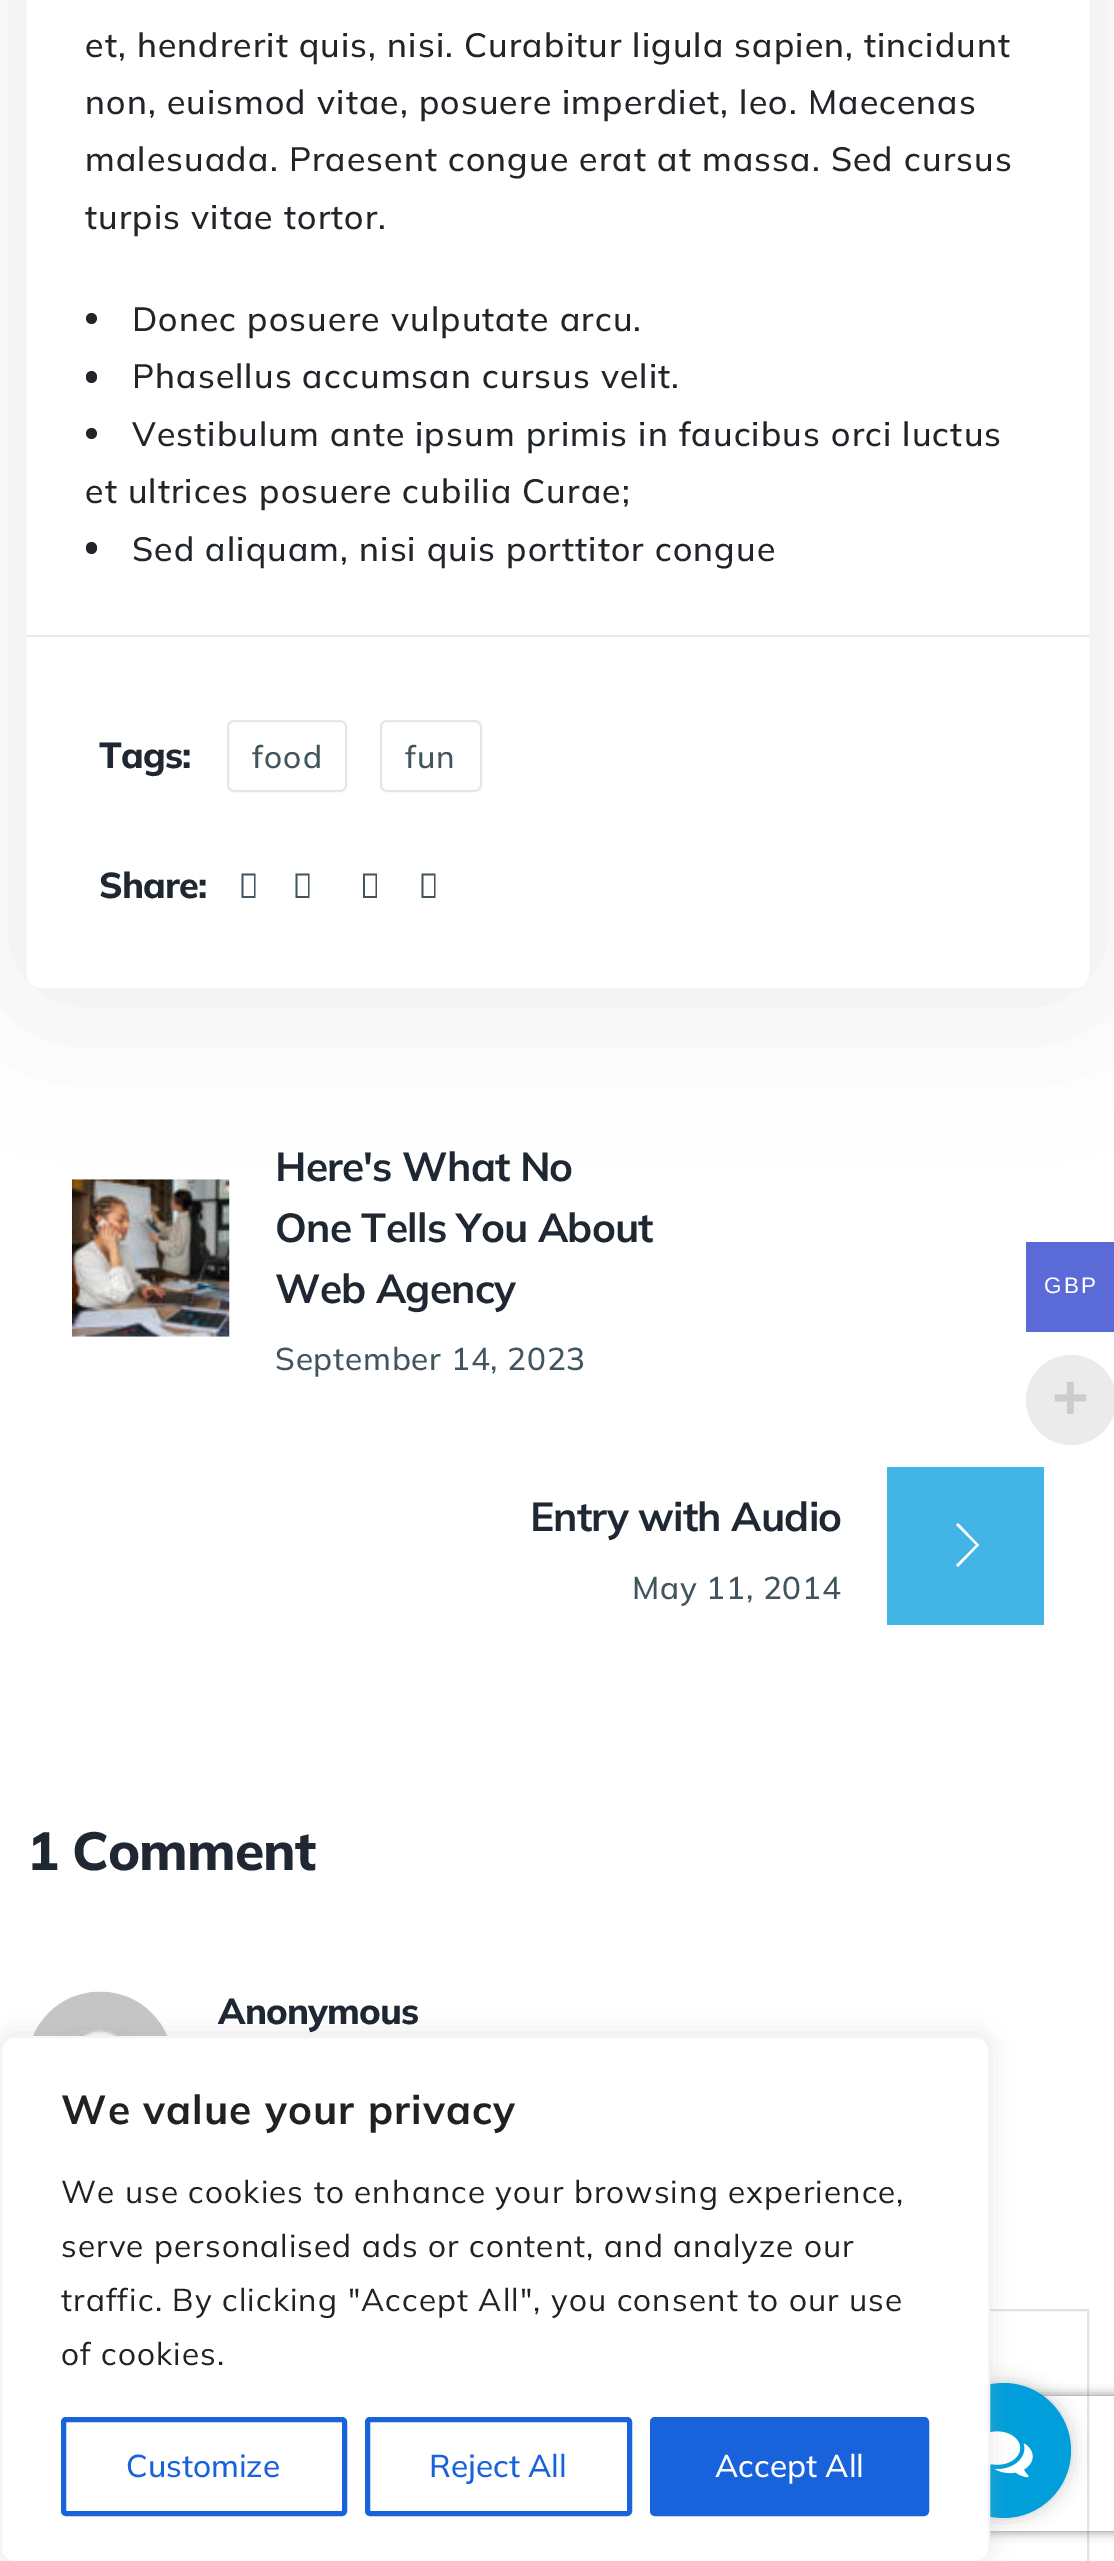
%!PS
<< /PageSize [1114 2561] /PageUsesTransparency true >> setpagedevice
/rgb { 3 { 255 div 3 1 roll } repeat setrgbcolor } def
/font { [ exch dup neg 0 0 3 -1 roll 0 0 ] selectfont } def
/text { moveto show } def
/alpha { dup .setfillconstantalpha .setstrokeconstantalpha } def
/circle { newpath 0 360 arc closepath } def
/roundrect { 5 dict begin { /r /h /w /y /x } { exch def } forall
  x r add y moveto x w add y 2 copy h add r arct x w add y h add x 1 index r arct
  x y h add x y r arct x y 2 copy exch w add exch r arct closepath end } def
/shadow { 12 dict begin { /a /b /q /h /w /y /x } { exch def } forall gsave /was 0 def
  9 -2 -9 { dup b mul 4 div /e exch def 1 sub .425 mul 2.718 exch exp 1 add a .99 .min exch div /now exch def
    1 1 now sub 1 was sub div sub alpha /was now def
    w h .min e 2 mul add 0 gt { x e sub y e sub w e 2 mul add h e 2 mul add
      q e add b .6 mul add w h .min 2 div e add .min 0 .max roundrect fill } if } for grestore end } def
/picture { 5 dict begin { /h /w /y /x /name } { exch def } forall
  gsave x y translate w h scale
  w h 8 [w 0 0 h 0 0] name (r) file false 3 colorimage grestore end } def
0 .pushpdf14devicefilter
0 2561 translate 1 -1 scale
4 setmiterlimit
255 255 255 rgb
0 0 1114 2561 rectfill
0 0 0 rgb
27 -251 1062 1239 14 79 0.08 shadow
255 255 255 rgb
27 -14 1062 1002 14 roundrect fill
33 37 41 rgb
91.5 318.5 5.5 circle fill
86 371 11 12 5.5 roundrect fill
91.5 433.5 5.5 circle fill
86 542 11 12 5.5 roundrect fill
233 233 233 rgb
27 635 1062 2 rectfill
230 230 230 rgb
2 setlinewidth
228 721 118 70 6 roundrect stroke
381 721 100 70 6 roundrect stroke
66 84 94 rgb
241.5 898 moveto 0 -24.5 rlineto 14 0 rlineto 0 24.5 rlineto closepath 243.5 896 moveto 10.5 0 rlineto 0 -20.5 rlineto -10.5 0 rlineto closepath fill
295.5 898 moveto 0 -24.5 rlineto 14 0 rlineto 0 24.5 rlineto closepath 297.5 896 moveto 10.5 0 rlineto 0 -20.5 rlineto -10.5 0 rlineto closepath fill
363 898 moveto 0 -24.5 rlineto 14 0 rlineto 0 24.5 rlineto closepath 365 896 moveto 10.5 0 rlineto 0 -20.5 rlineto -10.5 0 rlineto closepath fill
421.5 898 moveto 0 -24.5 rlineto 14 0 rlineto 0 24.5 rlineto closepath 423.5 896 moveto 10.5 0 rlineto 0 -20.5 rlineto -10.5 0 rlineto closepath fill
(img_01.rgb) 72 1179 158 158 picture
66 180 229 rgb
887 1467 157 158 rectfill
255 255 255 rgb
976 1545 moveto -20 20 rlineto 2 2 rlineto 21 -22 rlineto -21 -22 rlineto -2 2 rlineto closepath fill
(img_02.rgb) 33 1991 135 45 picture
222 226 230 rgb
28 2310 1060 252 rectstroke
90 107 215 rgb
1026 1242 88 90 rectfill
0.2 alpha
153 153 153 rgb
1071 1400 45 circle fill
1 alpha
0 0 0 rgb
936 2383 135 135 67.5 9 0.2 shadow
gsave
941 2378 moveto 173 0 rlineto 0 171 rlineto -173 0 rlineto closepath 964 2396 moveto 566 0 rlineto 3 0 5 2 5 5 rcurveto 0 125 rlineto 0 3 -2 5 -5 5 rcurveto -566 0 rlineto -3 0 -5 -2 -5 -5 rcurveto 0 -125 rlineto 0 -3 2 -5 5 -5 rcurveto closepath eoclip newpath
128 128 128 rgb
959 2396 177 135 5 5.5 1 shadow
grestore
0 158 219 rgb
1003.5 2450.5 67.5 circle fill
(img_03.rgb) 990 2431 43 47 picture
172 171 171 rgb
0 2034 990 527 14 11 0.3 shadow
255 255 255 rgb
1 2037 988 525 13 roundrect gsave fill grestore
244 244 244 rgb
stroke
24 99 220 rgb
5 setlinewidth
63.5 2419.5 281 94 2.5 roundrect stroke
367.5 2419.5 262 94 2.5 roundrect stroke
652.5 2419.5 274 94 2.5 roundrect gsave fill grestore
stroke
/Mulish-Medium 33.75 font
33 37 41 rgb
85 57 moveto 1.12 0 (et, hendrerit quis, nisi. Curabitur ligula sapien, tincidunt) ashow
85 114 moveto 1.12 0 (non, euismod vitae, posuere imperdiet, leo. Maecenas) ashow
85 171 moveto 1.12 0 (malesuada. Praesent congue erat at massa. Sed cursus) ashow
85 229 moveto 1.12 0 (turpis vitae tortor.) ashow
132 331 moveto 1.12 0 (Donec posuere vulputate arcu.) ashow
132 388 moveto 1.12 0 (Phasellus accumsan cursus velit.) ashow
132 446 moveto 1.12 0 (Vestibulum ante ipsum primis in faucibus orci luctus) ashow
85 503 moveto 1.12 0 (et ultrices posuere cubilia Curae;) ashow
132 561 moveto 1.12 0 (Sed aliquam, nisi quis porttitor congue) ashow
/Mulish-ExtraBold 36 font
31 39 50 rgb
99 768 moveto -0.75 0 (Tags:) ashow
/Mulish-Medium 31.5 font
66 84 94 rgb
252 768 moveto 1.12 0 (food) ashow
405 768 moveto 1.12 0 (fun) ashow
/Mulish-ExtraBold 36 font
31 39 50 rgb
99 898 moveto -0.75 0 (Share:) ashow
/Mulish-Bold 40.5 font
275 1181 moveto -0.8 0 (Here's What No) ashow
275 1242 moveto -0.8 0 (One Tells You About) ashow
275 1303 moveto -0.8 0 (Web Agency) ashow
/Mulish-Medium 31.5 font
66 84 94 rgb
275 1370 moveto 0.75 0 (September 14, 2023) ashow
/Mulish-Bold 40.5 font
31 39 50 rgb
530 1531 moveto -0.8 0 (Entry with Audio) ashow
/Mulish-Medium 31.5 font
66 84 94 rgb
632 1599 moveto 0.75 0 (May 11, 2014) ashow
/Mulish-ExtraBold 53.5 font
31 39 50 rgb
27 1870 moveto -1 0 (1 Comment) ashow
/Mulish-ExtraBold 36 font
218 2024 moveto -0.75 0 (Anonymous) ashow
/LiberationSans-Regular 22.5 font
255 255 255 rgb
1044 1293 moveto 2 0 (GBP) ashow
/LiberationSans-Bold 63 font
204 204 204 rgb
1052 1419 moveto 1.12 0 (+) ashow
/Mulish-Bold 40.5 font
33 33 33 rgb
61 2124 moveto 1.12 0 (We value your privacy) ashow
/Mulish-Regular 31.5 font
61 2203 moveto 1.12 0 (We use cookies to enhance your browsing experience,) ashow
61 2257 moveto 1.12 0 (serve personalised ads or content, and analyze our) ashow
61 2311 moveto 1.12 0 (traffic. By clicking "Accept All", you consent to our use) ashow
61 2365 moveto 1.12 0 (of cookies.) ashow
/Mulish-Medium 31.5 font
24 99 220 rgb
(Customize) 126 2477 text
(Reject All) 429 2477 text
255 255 255 rgb
(Accept All) 715 2477 text
.poppdf14devicefilter showpage
